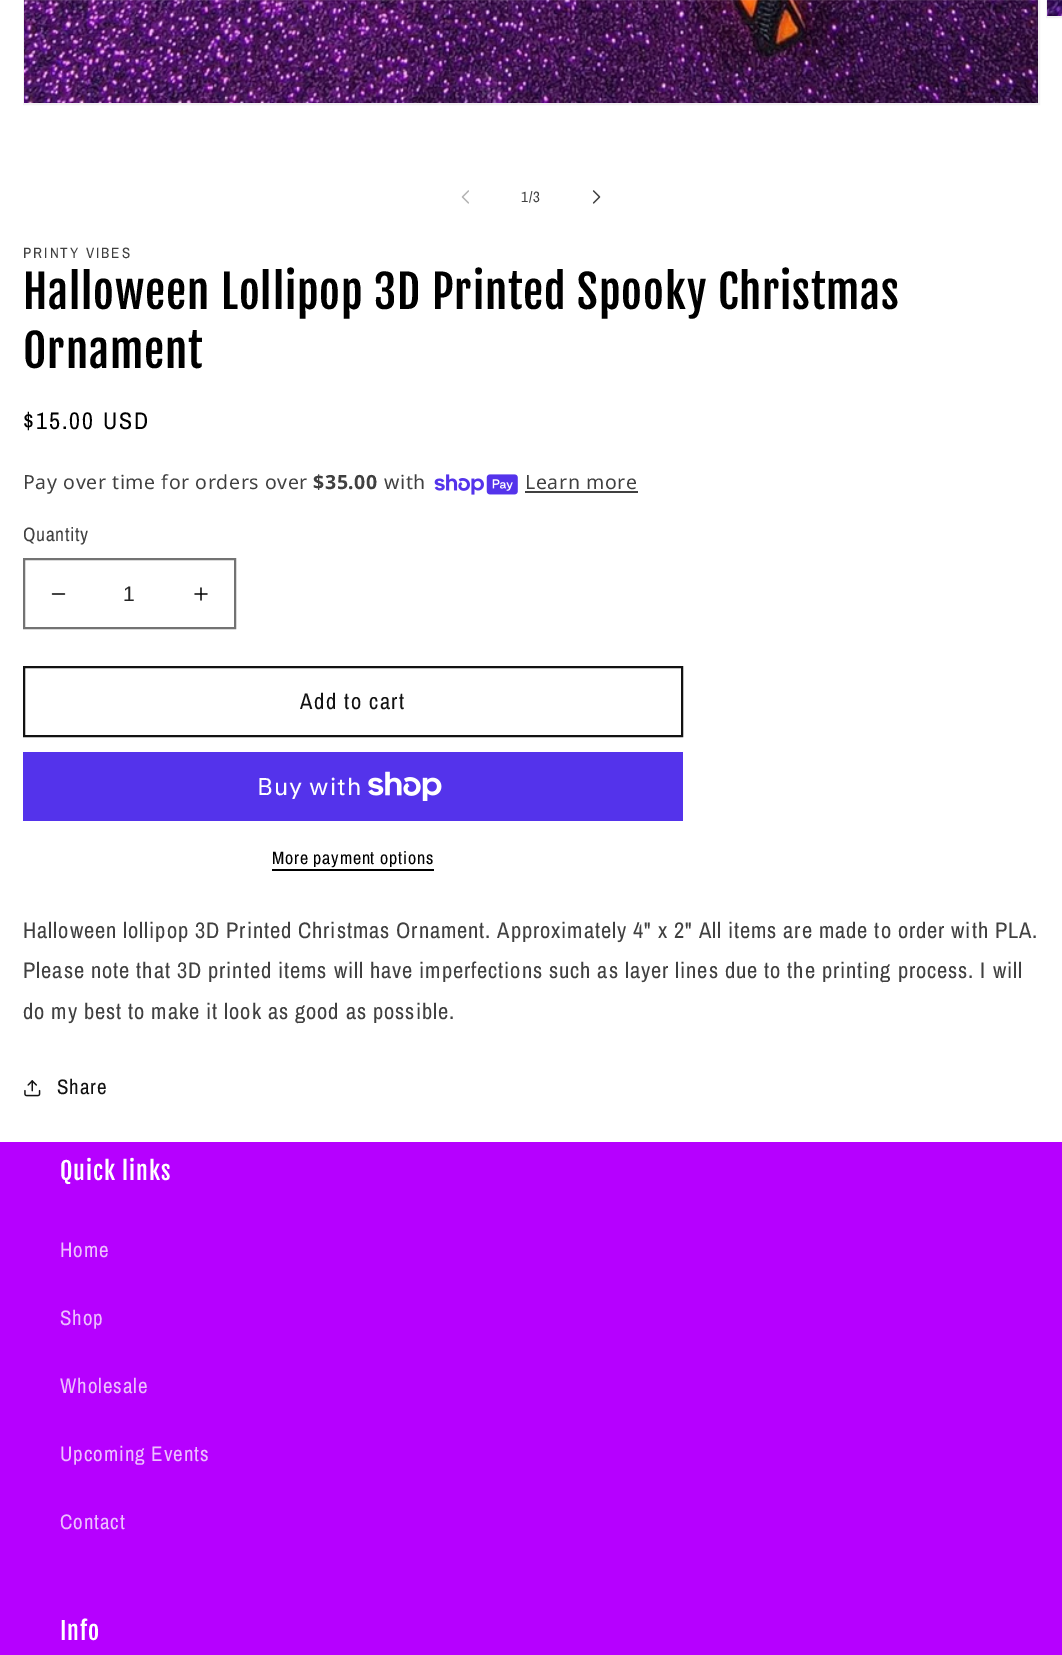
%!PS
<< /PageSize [1062 1655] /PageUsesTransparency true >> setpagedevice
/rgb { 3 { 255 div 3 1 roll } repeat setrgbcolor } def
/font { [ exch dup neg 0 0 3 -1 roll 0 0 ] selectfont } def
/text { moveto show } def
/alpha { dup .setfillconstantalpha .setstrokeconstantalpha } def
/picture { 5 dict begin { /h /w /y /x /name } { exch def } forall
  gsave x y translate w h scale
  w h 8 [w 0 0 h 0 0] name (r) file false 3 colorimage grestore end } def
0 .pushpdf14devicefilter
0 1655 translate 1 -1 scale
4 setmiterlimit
255 255 255 rgb
0 0 1062 1655 rectfill
242 242 242 rgb
2 setlinewidth
24 -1 1015 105 rectstroke
(img_01.rgb) 24 0 1014 103 picture
1047 -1 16 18 rectstroke
(img_02.rgb) 1047 0 15 16 picture
0.08 alpha
255 255 255 rgb
24 0 1038 1 rectfill
1 alpha
(img_03.rgb) 461 190 8 14 picture
(img_04.rgb) 592 190 9 14 picture
(img_05.rgb) 434 474 84 21 picture
64 64 64 rgb
525 491 113 2 rectfill
(img_06.rgb) 51 593 15 2 picture
(img_07.rgb) 194 587 14 14 picture
115 115 115 rgb
24 559 211 69 rectstroke
18 18 18 rgb
24 667 658 69 rectstroke
84 51 235 rgb
23 752 660 69 rectfill
(img_08.rgb) 368 771 74 30 picture
0 0 0 rgb
272 869 162 2 rectfill
(img_09.rgb) 24 1080 17 17 picture
182 0 255 rgb
0 1142 1062 513 rectfill
/ArchivoNarrow-Regular 15 font
64 64 64 rgb
521 202 moveto 1 0 (1/3) ashow
23 258 moveto 2 0 (PRINTY VIBES) ashow
/FjallaOne-Regular 45 font
0 0 0 rgb
23 309 moveto 0.9 0 (Halloween Lollipop 3D Printed Spooky Christmas) ashow
23 368 moveto 0.9 0 (Ornament) ashow
/ArchivoNarrow-Regular 24 font
23 429 moveto 2 0 ($15.00 USD) ashow
/NotoSans-Regular 19.5 font
64 64 64 rgb
23 489 moveto 0.6 0 (Pay over time for orders over) ashow
/NotoSans-Bold 19.5 font
313 489 moveto 0.6 0 ($35.00) ashow
/NotoSans-Regular 19.5 font
384 489 moveto 0.6 0 (with) ashow
525 489 moveto 0.6 0 (Learn more) ashow
/ArchivoNarrow-Regular 19.5 font
23 541 moveto 0.6 0 (Quantity) ashow
/LiberationSans-Regular 21 font
38 38 38 rgb
(1) 123 601 text
/ArchivoNarrow-Regular 22.5 font
18 18 18 rgb
300 709 moveto 1.5 0 (Add to cart) ashow
/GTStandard-Regular 24 font
255 255 255 rgb
257 795 moveto 0.9 0 (Buy with) ashow
/ArchivoNarrow-Regular 18 font
0 0 0 rgb
272 864 moveto 0.75 0 (More payment options) ashow
/ArchivoNarrow-Regular 22.5 font
64 64 64 rgb
23 938 moveto 0.9 0 (Halloween lollipop 3D Printed Christmas Ornament. Approximately 4" x 2" All items are made to order with PLA.) ashow
23 978 moveto 0.9 0 (Please note that 3D printed items will have imperfections such as layer lines due to the printing process. I will) ashow
23 1019 moveto 0.9 0 (do my best to make it look as good as possible.) ashow
/ArchivoNarrow-Regular 21 font
18 18 18 rgb
57 1094 moveto 0.9 0 (Share) ashow
/FjallaOne-Regular 24 font
255 255 255 rgb
60 1180 moveto 0.9 0 (Quick links) ashow
/ArchivoNarrow-Regular 21 font
237 191 255 rgb
60 1257 moveto 0.9 0 (Home) ashow
60 1325 moveto 0.9 0 (Shop) ashow
60 1393 moveto 0.9 0 (Wholesale) ashow
60 1461 moveto 0.9 0 (Upcoming Events) ashow
60 1529 moveto 0.9 0 (Contact) ashow
/FjallaOne-Regular 24 font
255 255 255 rgb
60 1640 moveto 0.9 0 (Info) ashow
.poppdf14devicefilter showpage
